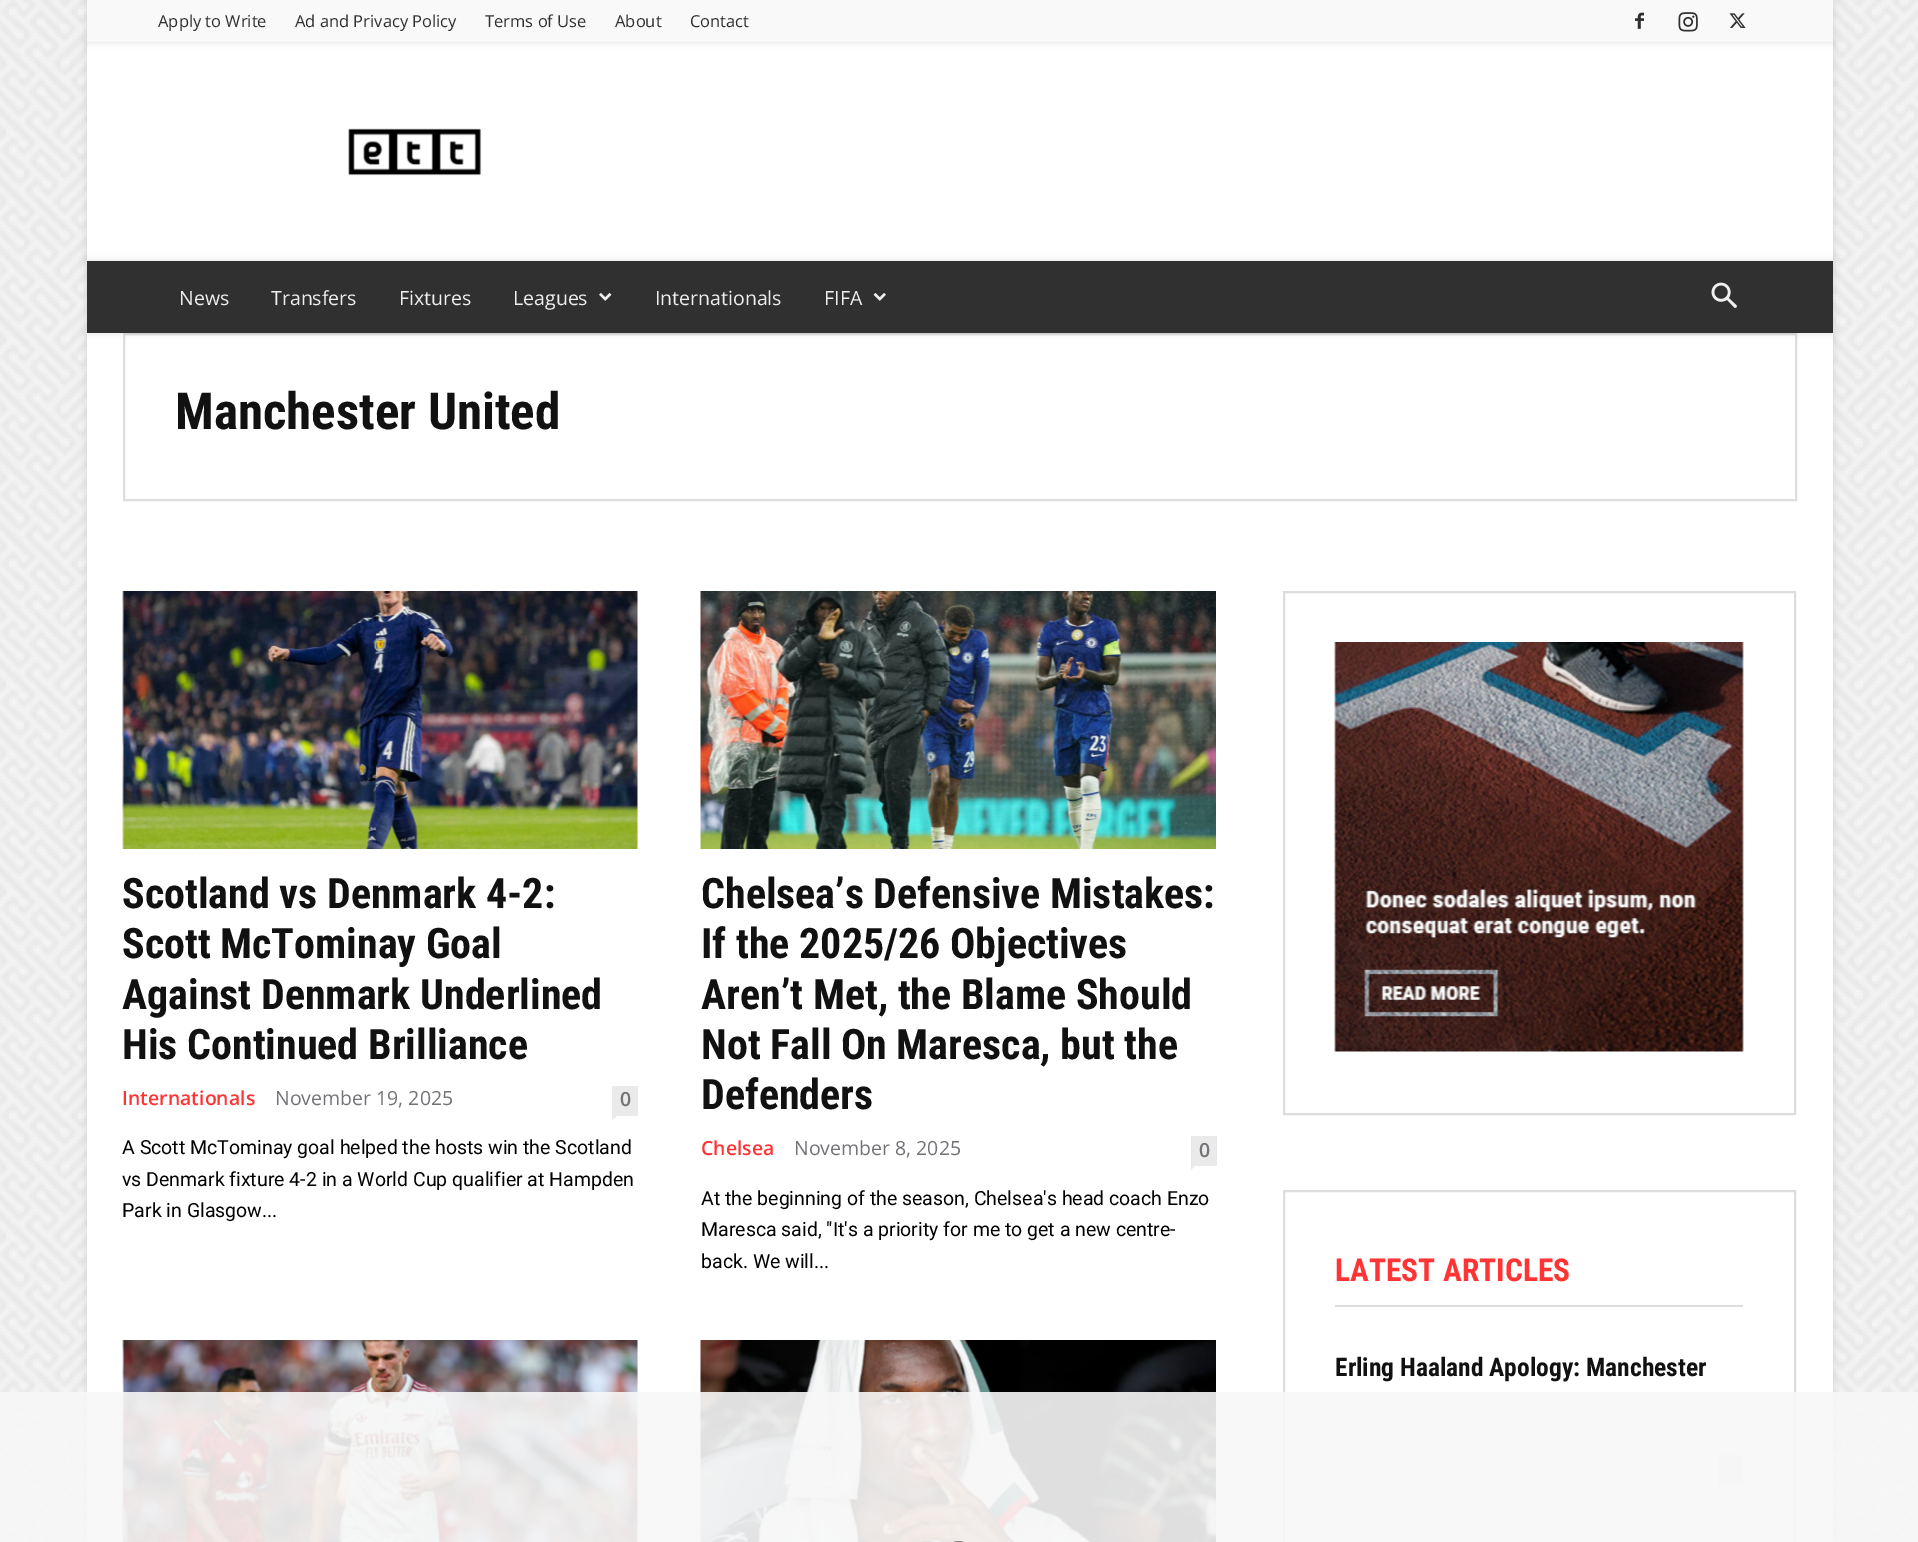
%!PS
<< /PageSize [1918 1542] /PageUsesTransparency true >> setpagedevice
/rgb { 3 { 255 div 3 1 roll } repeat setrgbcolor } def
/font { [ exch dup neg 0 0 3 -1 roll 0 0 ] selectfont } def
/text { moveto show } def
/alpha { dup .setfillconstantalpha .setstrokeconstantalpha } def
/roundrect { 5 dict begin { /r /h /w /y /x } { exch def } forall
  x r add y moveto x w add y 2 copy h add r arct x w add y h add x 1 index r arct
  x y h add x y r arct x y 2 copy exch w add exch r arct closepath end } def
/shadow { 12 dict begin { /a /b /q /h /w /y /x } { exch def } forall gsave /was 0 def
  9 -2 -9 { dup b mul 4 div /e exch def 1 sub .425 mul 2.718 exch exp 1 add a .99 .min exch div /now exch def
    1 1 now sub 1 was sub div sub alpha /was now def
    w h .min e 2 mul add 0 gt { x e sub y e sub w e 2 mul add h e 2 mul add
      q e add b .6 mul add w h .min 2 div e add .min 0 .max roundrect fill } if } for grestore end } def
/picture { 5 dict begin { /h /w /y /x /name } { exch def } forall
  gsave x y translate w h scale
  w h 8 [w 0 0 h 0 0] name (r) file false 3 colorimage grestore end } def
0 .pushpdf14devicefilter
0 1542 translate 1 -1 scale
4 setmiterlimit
255 255 255 rgb
0 0 1918 1542 rectfill
(img_01.rgb) 0 0 1918 1542 picture
0 0 0 rgb
87 42 1746 219 0 4 0.12 shadow
255 255 255 rgb
87 42 1746 219 rectfill
0 0 0 rgb
87 0 1746 42 0 4 0.12 shadow
249 249 249 rgb
87 0 1746 42 rectfill
(img_02.rgb) 1635 12 9 17 picture
(img_03.rgb) 1678 12 20 20 picture
(img_04.rgb) 1729 13 17 15 picture
(img_05.rgb) 348 128 134 48 picture
0 0 0 rgb
87 333 1746 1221 0 4 0.12 shadow
255 255 255 rgb
87 333 1746 1209 rectfill
221 221 221 rgb
2 setlinewidth
124 334 1672 166 rectstroke
0 0 0 rgb
87 261 1746 72 0 4 0.12 shadow
48 48 48 rgb
87 261 1746 72 rectfill
(img_06.rgb) 599 293 13 8 picture
(img_07.rgb) 873 293 13 8 picture
(img_08.rgb) 1711 282 26 26 picture
(img_09.rgb) 122 591 516 258 picture
234 234 234 rgb
612 1086 26 30 rectfill
612 1116 moveto 4.5 0 rlineto -4.5 4.5 rlineto closepath fill
(img_10.rgb) 700 591 516 258 picture
1191 1136 26 30 rectfill
1191 1165.5 moveto 4.5 0 rlineto -4.5 4.5 rlineto closepath fill
(img_11.rgb) 122 1340 516 202 picture
(img_12.rgb) 700 1340 516 202 picture
221 221 221 rgb
1284 592 511 522 rectstroke
(img_13.rgb) 1334 642 410 410 picture
1284 1191 511 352 rectstroke
1335 1305 408 2 rectfill
234 234 234 rgb
1718 1455 25 29 rectfill
1717.5 1483.5 moveto 4.5 0 rlineto -4.5 4.5 rlineto closepath fill
0.9 alpha
247 247 247 rgb
0 1392 1918 150 rectfill
1 alpha
245 244 244 rgb
943 1542 31 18 15.5 roundrect stroke
136 136 136 rgb
943 1542 31 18 15.5 roundrect stroke
/OpenSans-Regular 16.5 font
47 47 47 rgb
(Apply to Write) 158 27 text
(Ad and Privacy Policy) 295 27 text
(Terms of Use) 485 27 text
(About) 615 27 text
(Contact) 690 27 text
/OpenSans-Regular 19.5 font
239 239 239 rgb
(News) 179 305 text
(Transfers) 271 305 text
(Fixtures) 399 305 text
(Leagues) 513 305 text
(Internationals) 655 305 text
(FIFA) 824 305 text
/RobotoCondensed-Bold 51 font
17 17 17 rgb
(Manchester United) 175 429 text
/RobotoCondensed-Bold 42 font
(Scotland vs Denmark 4-2:) 122 908 text
(Scott McTominay Goal) 122 958 text
(Against Denmark Underlined) 122 1009 text
(His Continued Brilliance) 122 1059 text
/OpenSans-SemiBold 19.5 font
255 53 53 rgb
(Internationals) 122 1105 text
/OpenSans-Regular 19.5 font
114 114 119 rgb
(November 19, 2025) 275 1105 text
/OpenSans-SemiBold 19.5 font
(0) 620 1106 text
/Roboto-Regular 19.5 font
0 0 0 rgb
(A Scott McTominay goal helped the hosts win the Scotland) 122 1154 text
(vs Denmark fixture 4-2 in a World Cup qualifier at Hampden) 122 1186 text
(Park in Glasgow...) 122 1217 text
/RobotoCondensed-Bold 42 font
17 17 17 rgb
(Chelsea’s Defensive Mistakes:) 701 908 text
(If the 2025/26 Objectives) 701 958 text
(Aren’t Met, the Blame Should) 701 1009 text
(Not Fall On Maresca, but the) 701 1059 text
(Defenders) 701 1109 text
/OpenSans-SemiBold 19.5 font
255 53 53 rgb
(Chelsea) 701 1155 text
/OpenSans-Regular 19.5 font
114 114 119 rgb
(November 8, 2025) 794 1155 text
/OpenSans-SemiBold 19.5 font
(0) 1199 1157 text
/Roboto-Regular 19.5 font
0 0 0 rgb
(At the beginning of the season, Chelsea's head coach Enzo) 701 1205 text
(Maresca said, "It's a priority for me to get a new centre-) 701 1236 text
(back. We will...) 701 1268 text
/RobotoCondensed-Bold 31.5 font
255 53 53 rgb
(LATEST ARTICLES) 1335 1281 text
/RobotoCondensed-Bold 25.5 font
17 17 17 rgb
(Erling Haaland Apology: Manchester) 1335 1376 text
.poppdf14devicefilter showpage
